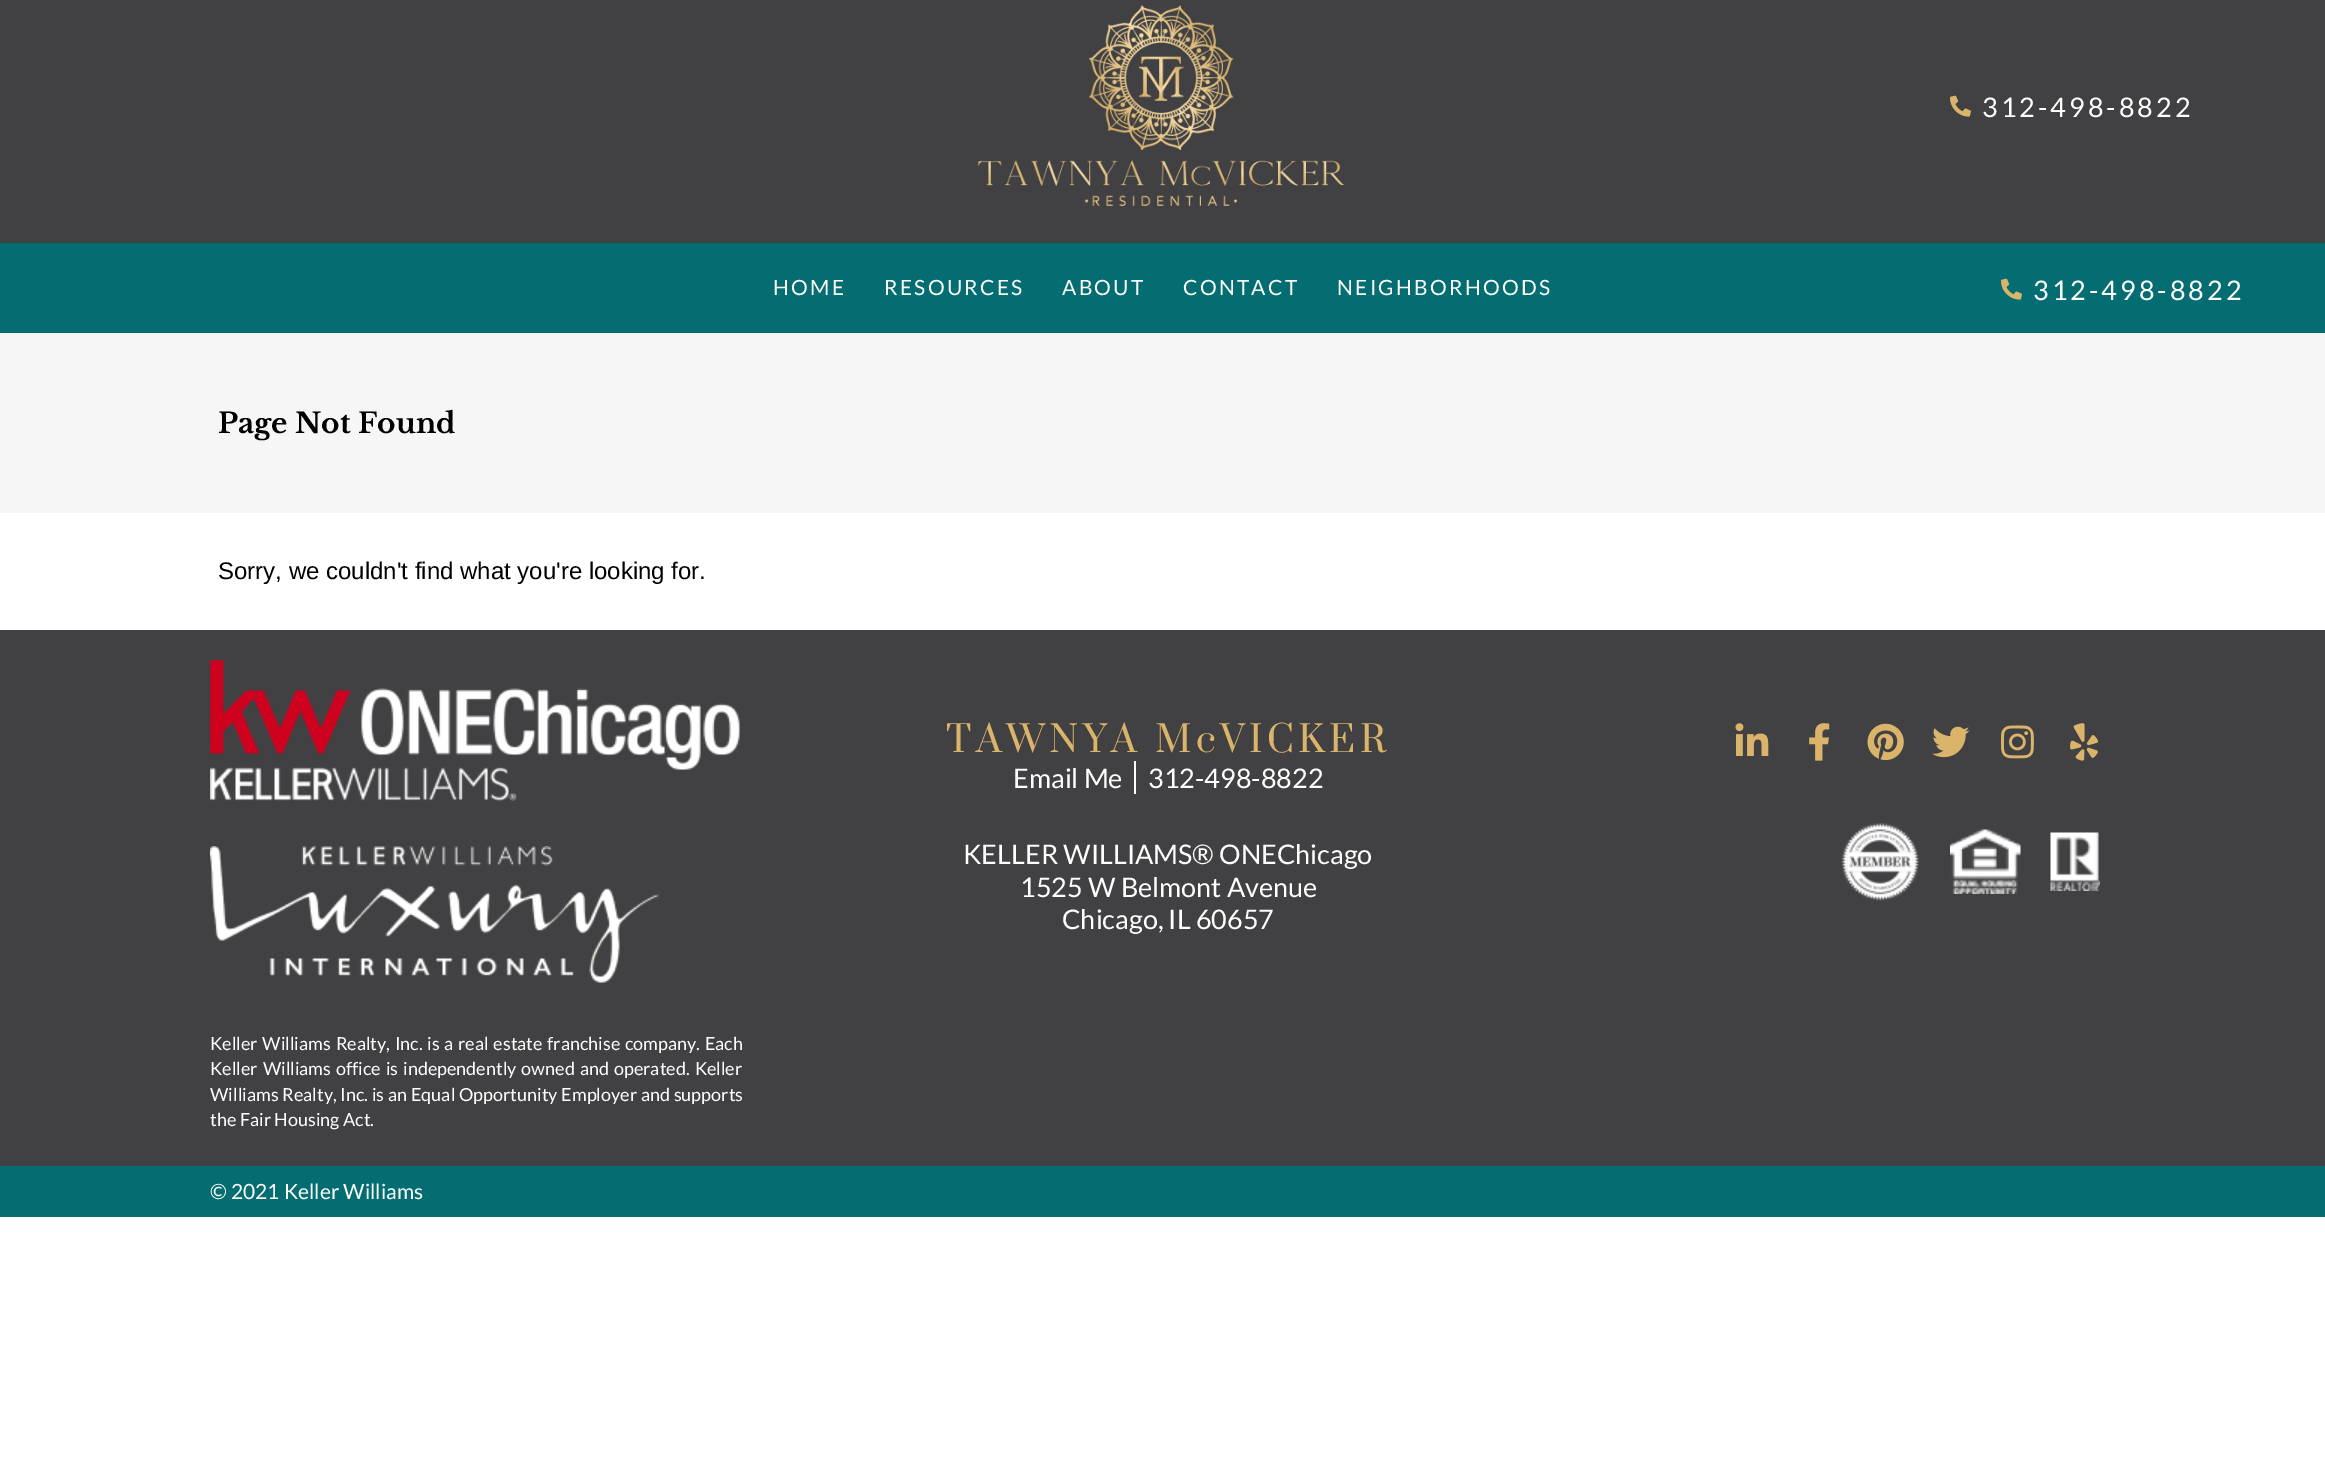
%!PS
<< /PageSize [2325 1474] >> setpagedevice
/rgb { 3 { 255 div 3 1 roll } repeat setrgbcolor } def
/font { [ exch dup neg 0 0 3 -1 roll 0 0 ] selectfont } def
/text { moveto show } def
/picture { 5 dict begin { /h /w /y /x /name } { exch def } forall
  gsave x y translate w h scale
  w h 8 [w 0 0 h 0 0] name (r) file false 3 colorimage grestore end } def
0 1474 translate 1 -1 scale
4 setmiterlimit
255 255 255 rgb
0 0 2325 1474 rectfill
65 64 66 rgb
0 0 2325 243 rectfill
(img_01.rgb) 977 5 368 202 picture
(img_02.rgb) 1950 95 21 22 picture
3 109 114 rgb
0 243 2325 90 rectfill
(img_03.rgb) 2001 278 21 22 picture
246 246 246 rgb
0 333 2325 180 rectfill
65 64 66 rgb
0 630 2325 536 rectfill
255 255 255 rgb
1134 761 2 33 rectfill
(img_04.rgb) 1735 723 34 33 picture
(img_05.rgb) 1809 723 21 38 picture
(img_06.rgb) 1867 723 37 38 picture
(img_07.rgb) 1932 726 38 32 picture
(img_08.rgb) 2001 725 33 34 picture
(img_09.rgb) 2070 723 28 38 picture
(img_10.rgb) 1841 823 78 78 picture
(img_11.rgb) 1950 829 71 65 picture
(img_12.rgb) 2050 832 50 59 picture
(img_13.rgb) 210 660 530 141 picture
(img_14.rgb) 210 846 449 137 picture
3 109 114 rgb
0 1166 2325 51 rectfill
/Lato-Regular 27 font
255 255 255 rgb
1982 117 moveto 3 0 (312-498-8822) ashow
/Lato-Regular 21 font
773 295 moveto 2.25 0 (HOME) ashow
884 295 moveto 2.25 0 (RESOURCES) ashow
1062 295 moveto 2.25 0 (ABOUT) ashow
1183 295 moveto 2.25 0 (CONTACT) ashow
1337 295 moveto 2.25 0 (NEIGHBORHOODS) ashow
/Lato-Regular 27 font
2033 300 moveto 3 0 (312-498-8822) ashow
/LibreBaskerville-Bold 28 font
0 0 0 rgb
(Page Not Found) 218 433 text
/LiberationSans-Regular 24 font
(Sorry, we couldn't find what you're looking for.) 218 579 text
/Prata-Regular 36 font
218 180 106 rgb
946 752 moveto 4.5 0 (TAWNYA McVICKER) ashow
/Lato-Regular 27 font
255 255 255 rgb
(Email Me) 1013 788 text
(312-498-8822) 1148 788 text
(KELLER WILLIAMS® ONEChicago) 963 864 text
(1525 W Belmont Avenue) 1020 897 text
(Chicago, IL 60657) 1062 929 text
/Lato-Regular 18 font
210 1050 moveto 1.25 0 32 (Keller Williams Realty, Inc. is a real estate franchise company. Each) widthshow
210 1075 moveto 1.5 0 32 (Keller Williams office is independently owned and operated. Keller) widthshow
210 1101 moveto 0.25 0 32 (Williams Realty, Inc. is an Equal Opportunity Employer and supports) widthshow
(the Fair Housing Act.) 210 1126 text
/Lato-Regular 21 font
(© 2021 Keller Williams) 210 1199 text
showpage
